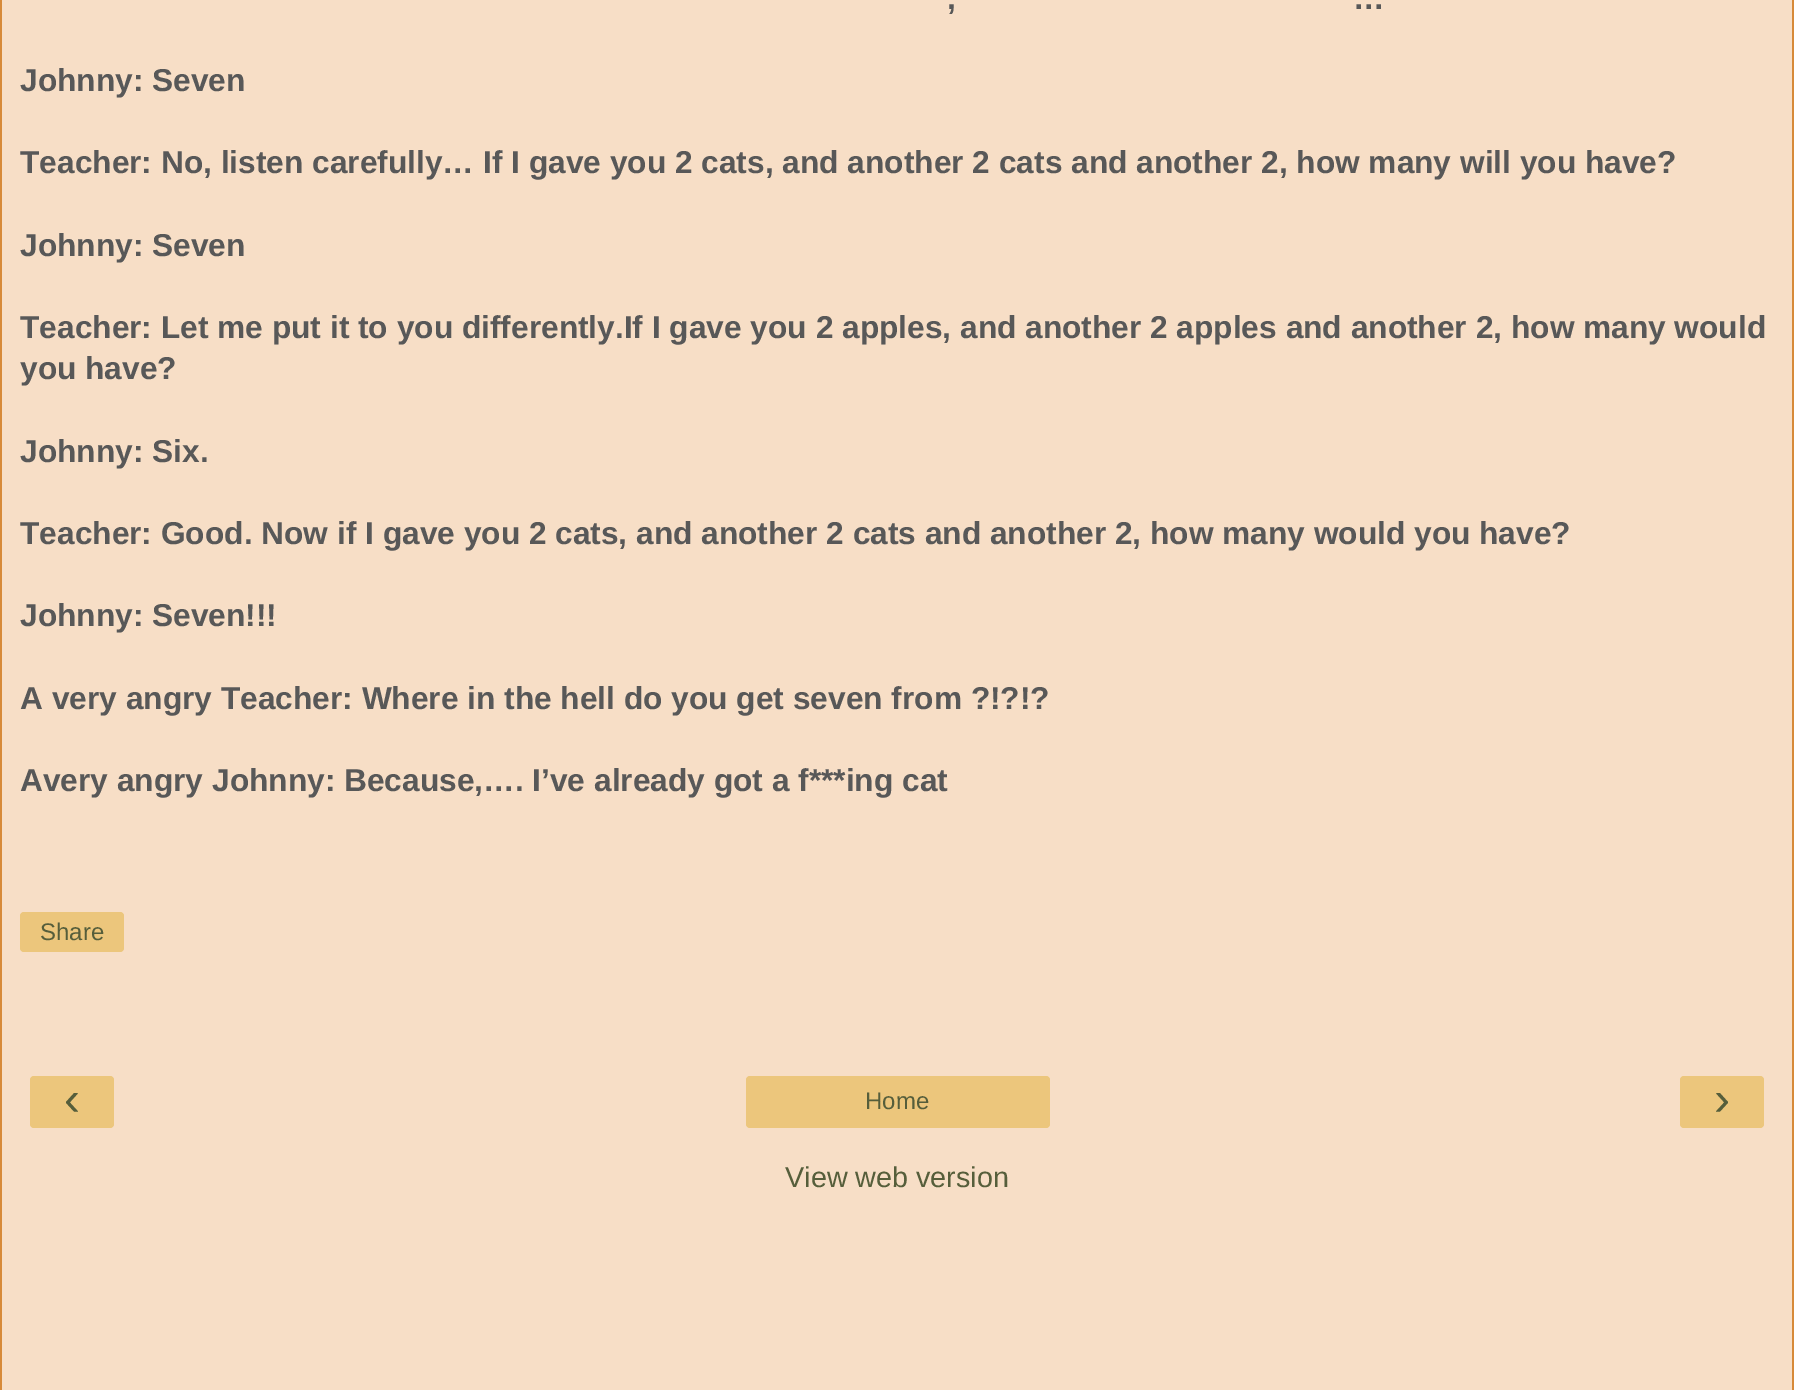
%!PS
<< /PageSize [1794 1390] >> setpagedevice
/rgb { 3 { 255 div 3 1 roll } repeat setrgbcolor } def
/font { [ exch dup neg 0 0 3 -1 roll 0 0 ] selectfont } def
/text { moveto show } def
/roundrect { 5 dict begin { /r /h /w /y /x } { exch def } forall
  x r add y moveto x w add y 2 copy h add r arct x w add y h add x 1 index r arct
  x y h add x y r arct x y 2 copy exch w add exch r arct closepath end } def
0 1390 translate 1 -1 scale
4 setmiterlimit
247 222 198 rgb
0 0 1794 1390 rectfill
215 138 57 rgb
1792 0 2 1390 rectfill
0 0 2 1390 rectfill
236 198 124 rgb
20 912 104 40 4 roundrect fill
30 1076 84 52 4 roundrect fill
746 1076 304 52 4 roundrect fill
1680 1076 84 52 4 roundrect fill
/LiberationSans-Bold 31.68 font
88 88 88 rgb
(,) 947 9 text
(…) 1353 9 text
(Johnny: Seven) 20 91 text
(Teacher: No, listen carefully… If I gave you 2 cats, and another 2 cats and another 2, how many will you have?) 20 173 text
(Johnny: Seven) 20 256 text
(Teacher: Let me put it to you differently.If I gave you 2 apples, and another 2 apples and another 2, how many would) 20 338 text
(you have?) 20 379 text
(Johnny: Six.) 20 462 text
(Teacher: Good. Now if I gave you 2 cats, and another 2 cats and another 2, how many would you have?) 20 544 text
(Johnny: Seven!!!) 20 626 text
(A very angry Teacher: Where in the hell do you get seven from ?!?!?) 20 709 text
(Avery angry Johnny: Because,…. I’ve already got a f***ing cat) 20 791 text
/LiberationSans-Regular 24 font
86 94 59 rgb
(Share) 40 940 text
/LiberationSans-Regular 48 font
(‹) 64 1115 text
/LiberationSans-Regular 24 font
(Home) 865 1109 text
/LiberationSans-Regular 48 font
(›) 1714 1115 text
/LiberationSans-Regular 28.75 font
(View web version) 785 1187 text
showpage
